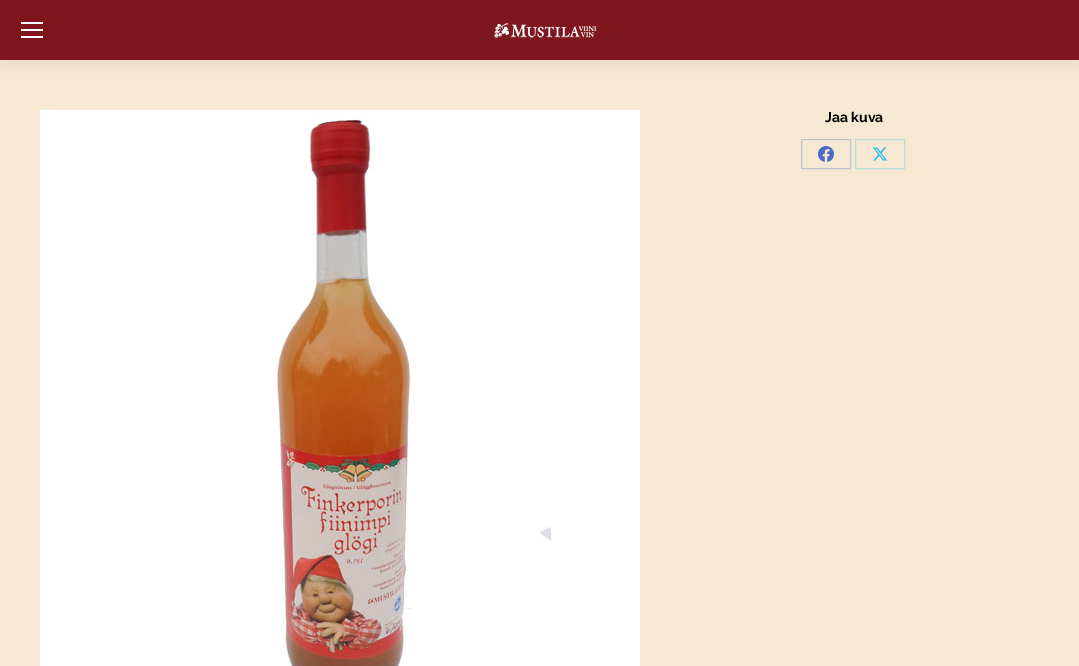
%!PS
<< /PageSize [1079 666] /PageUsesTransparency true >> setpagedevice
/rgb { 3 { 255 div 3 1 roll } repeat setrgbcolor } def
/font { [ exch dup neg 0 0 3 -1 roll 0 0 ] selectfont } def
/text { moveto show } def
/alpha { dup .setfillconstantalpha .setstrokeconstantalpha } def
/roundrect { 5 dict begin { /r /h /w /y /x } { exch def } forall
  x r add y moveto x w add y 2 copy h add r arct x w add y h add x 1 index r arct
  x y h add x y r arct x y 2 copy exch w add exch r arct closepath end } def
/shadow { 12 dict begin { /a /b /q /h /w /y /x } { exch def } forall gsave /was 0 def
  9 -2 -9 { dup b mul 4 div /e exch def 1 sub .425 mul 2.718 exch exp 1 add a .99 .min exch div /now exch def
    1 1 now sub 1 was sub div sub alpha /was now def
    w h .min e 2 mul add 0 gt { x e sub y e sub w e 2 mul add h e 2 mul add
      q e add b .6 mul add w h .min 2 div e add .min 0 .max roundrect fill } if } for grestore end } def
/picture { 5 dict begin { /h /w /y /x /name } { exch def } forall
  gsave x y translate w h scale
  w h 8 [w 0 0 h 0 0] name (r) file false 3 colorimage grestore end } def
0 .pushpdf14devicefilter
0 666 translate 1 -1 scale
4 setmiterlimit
246 232 210 rgb
0 0 1079 666 rectfill
0 0 0 rgb
-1 -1 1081 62 0 7.5 0.07 shadow
126 22 30 rgb
0 0 1079 60 rectfill
255 255 255 rgb
21 22 22 2 rectfill
21 29 22 2 rectfill
21 36 22 2 rectfill
(img_01.rgb) 494 23 103 15 picture
(img_02.rgb) 40 110 600 556 picture
195 194 207 rgb
801.5 139.5 49 29 rectstroke
(img_03.rgb) 818 146 16 16 picture
185 219 218 rgb
855.5 139.5 49 29 rectstroke
(img_04.rgb) 873 147 15 14 picture
/Raleway-Bold 14 font
0 0 0 rgb
(Jaa kuva) 825 122 text
.poppdf14devicefilter showpage
